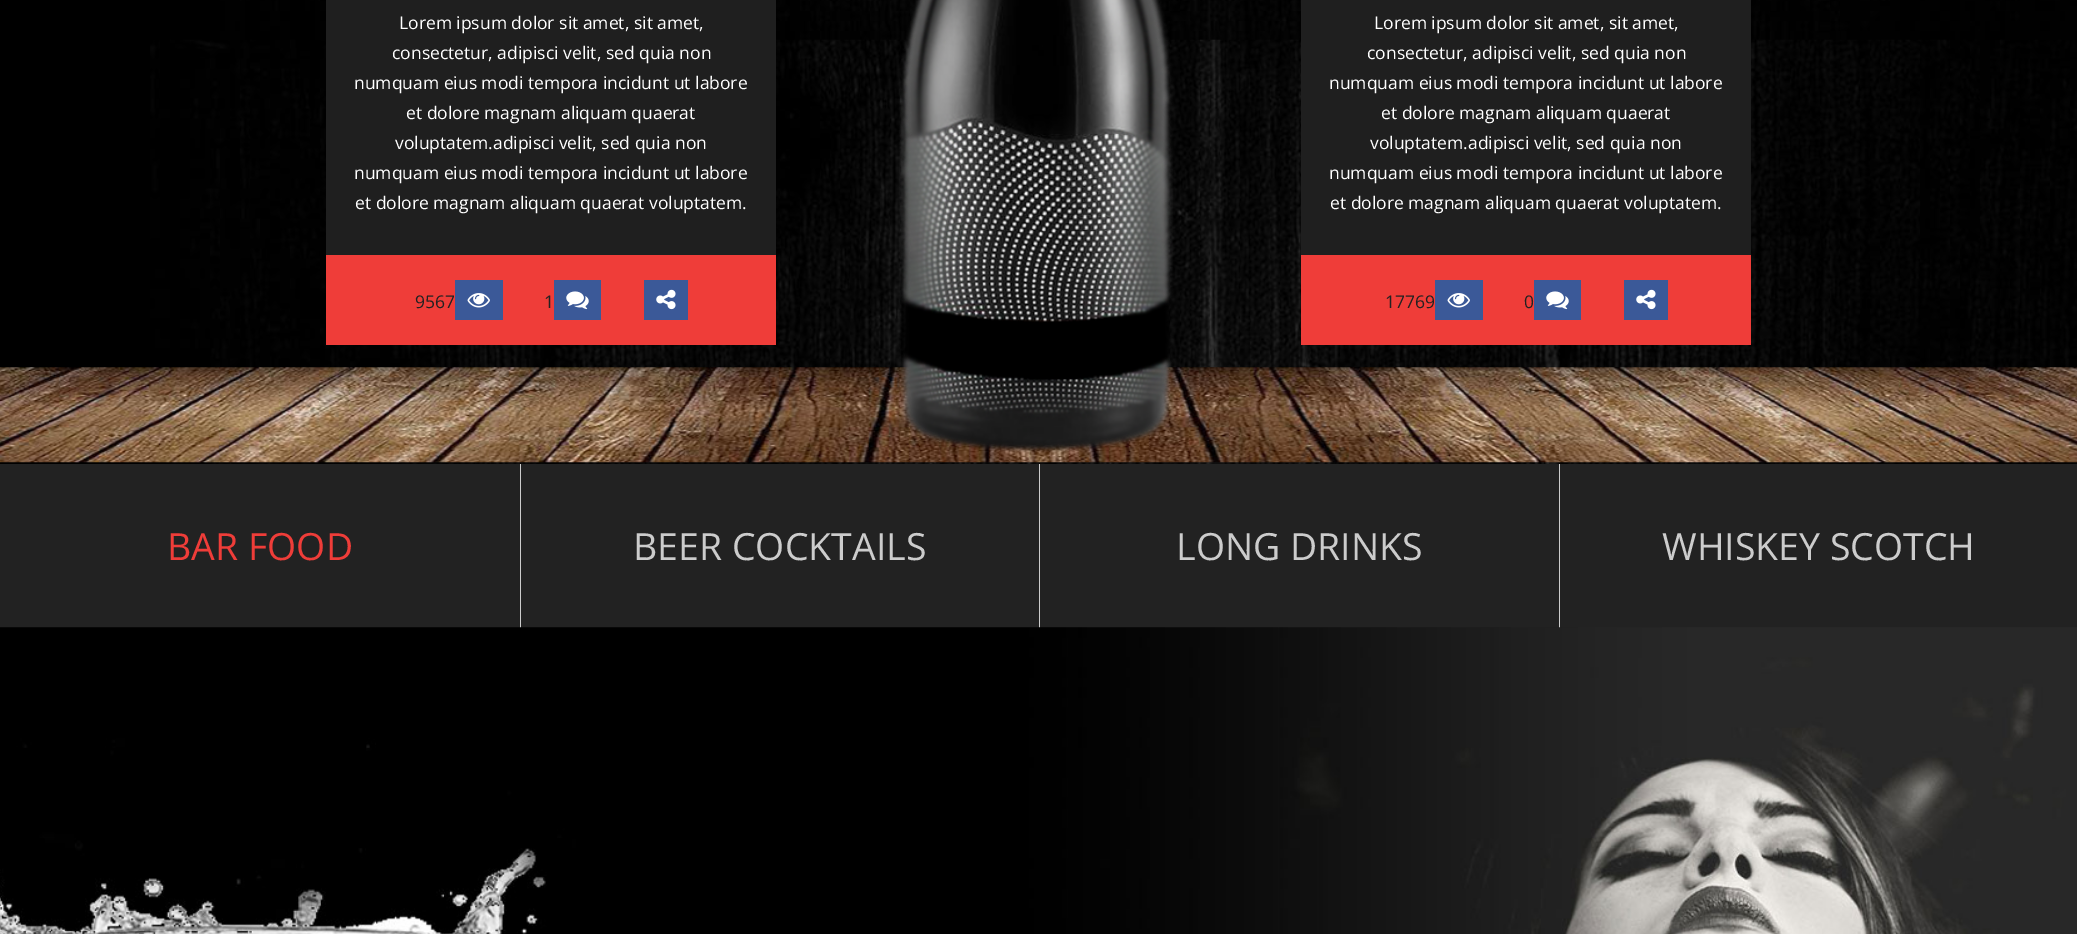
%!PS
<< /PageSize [2077 934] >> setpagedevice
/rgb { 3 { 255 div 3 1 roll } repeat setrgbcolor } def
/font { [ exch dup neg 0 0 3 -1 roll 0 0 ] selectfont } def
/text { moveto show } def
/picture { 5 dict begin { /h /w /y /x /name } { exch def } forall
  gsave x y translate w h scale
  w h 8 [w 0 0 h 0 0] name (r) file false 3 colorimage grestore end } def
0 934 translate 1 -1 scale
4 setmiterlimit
0 0 0 rgb
0 0 2077 934 rectfill
(img_01.rgb) 150 0 1927 464 picture
31 31 31 rgb
326 0 450 255 rectfill
239 61 57 rgb
326 255 450 90 rectfill
59 89 152 rgb
455 280 48 40 rectfill
(img_02.rgb) 467 293 23 15 picture
554 280 47 40 rectfill
(img_03.rgb) 566 291 23 19 picture
644 280 44 40 rectfill
(img_04.rgb) 656 289 20 21 picture
(img_06.rgb) 0 367 2077 96 picture
(img_05.rgb) 899 0 274 453 picture
31 31 31 rgb
1301 0 450 255 rectfill
239 61 57 rgb
1301 255 450 90 rectfill
59 89 152 rgb
1435 280 48 40 rectfill
(img_02.rgb) 1447 293 23 15 picture
1534 280 47 40 rectfill
(img_03.rgb) 1546 291 23 19 picture
1624 280 44 40 rectfill
(img_04.rgb) 1636 289 20 21 picture
34 34 34 rgb
0 464 2077 164 rectfill
204 204 204 rgb
520 464 1 164 rectfill
1039 464 1 164 rectfill
1559 464 1 164 rectfill
(img_07.rgb) 0 627 2077 307 picture
/OpenSans-Regular 17.5 font
255 255 255 rgb
(Lorem ipsum dolor sit amet, sit amet,) 399 29 text
(consectetur, adipisci velit, sed quia non) 392 59 text
(numquam eius modi tempora incidunt ut labore) 354 89 text
(et dolore magnam aliquam quaerat) 406 119 text
(voluptatem.adipisci velit, sed quia non) 395 149 text
(numquam eius modi tempora incidunt ut labore) 354 179 text
(et dolore magnam aliquam quaerat voluptatem.) 355 209 text
34 34 34 rgb
(9567) 415 308 text
(1) 544 308 text
255 255 255 rgb
(Lorem ipsum dolor sit amet, sit amet,) 1374 29 text
(consectetur, adipisci velit, sed quia non) 1367 59 text
(numquam eius modi tempora incidunt ut labore) 1329 89 text
(et dolore magnam aliquam quaerat) 1381 119 text
(voluptatem.adipisci velit, sed quia non) 1370 149 text
(numquam eius modi tempora incidunt ut labore) 1329 179 text
(et dolore magnam aliquam quaerat voluptatem.) 1330 209 text
34 34 34 rgb
(17769) 1385 308 text
(0) 1524 308 text
/OpenSans-Regular 37.5 font
239 61 57 rgb
(BAR FOOD) 167 560 text
204 204 204 rgb
(BEER COCKTAILS) 633 560 text
(LONG DRINKS) 1176 560 text
(WHISKEY SCOTCH) 1662 560 text
showpage
